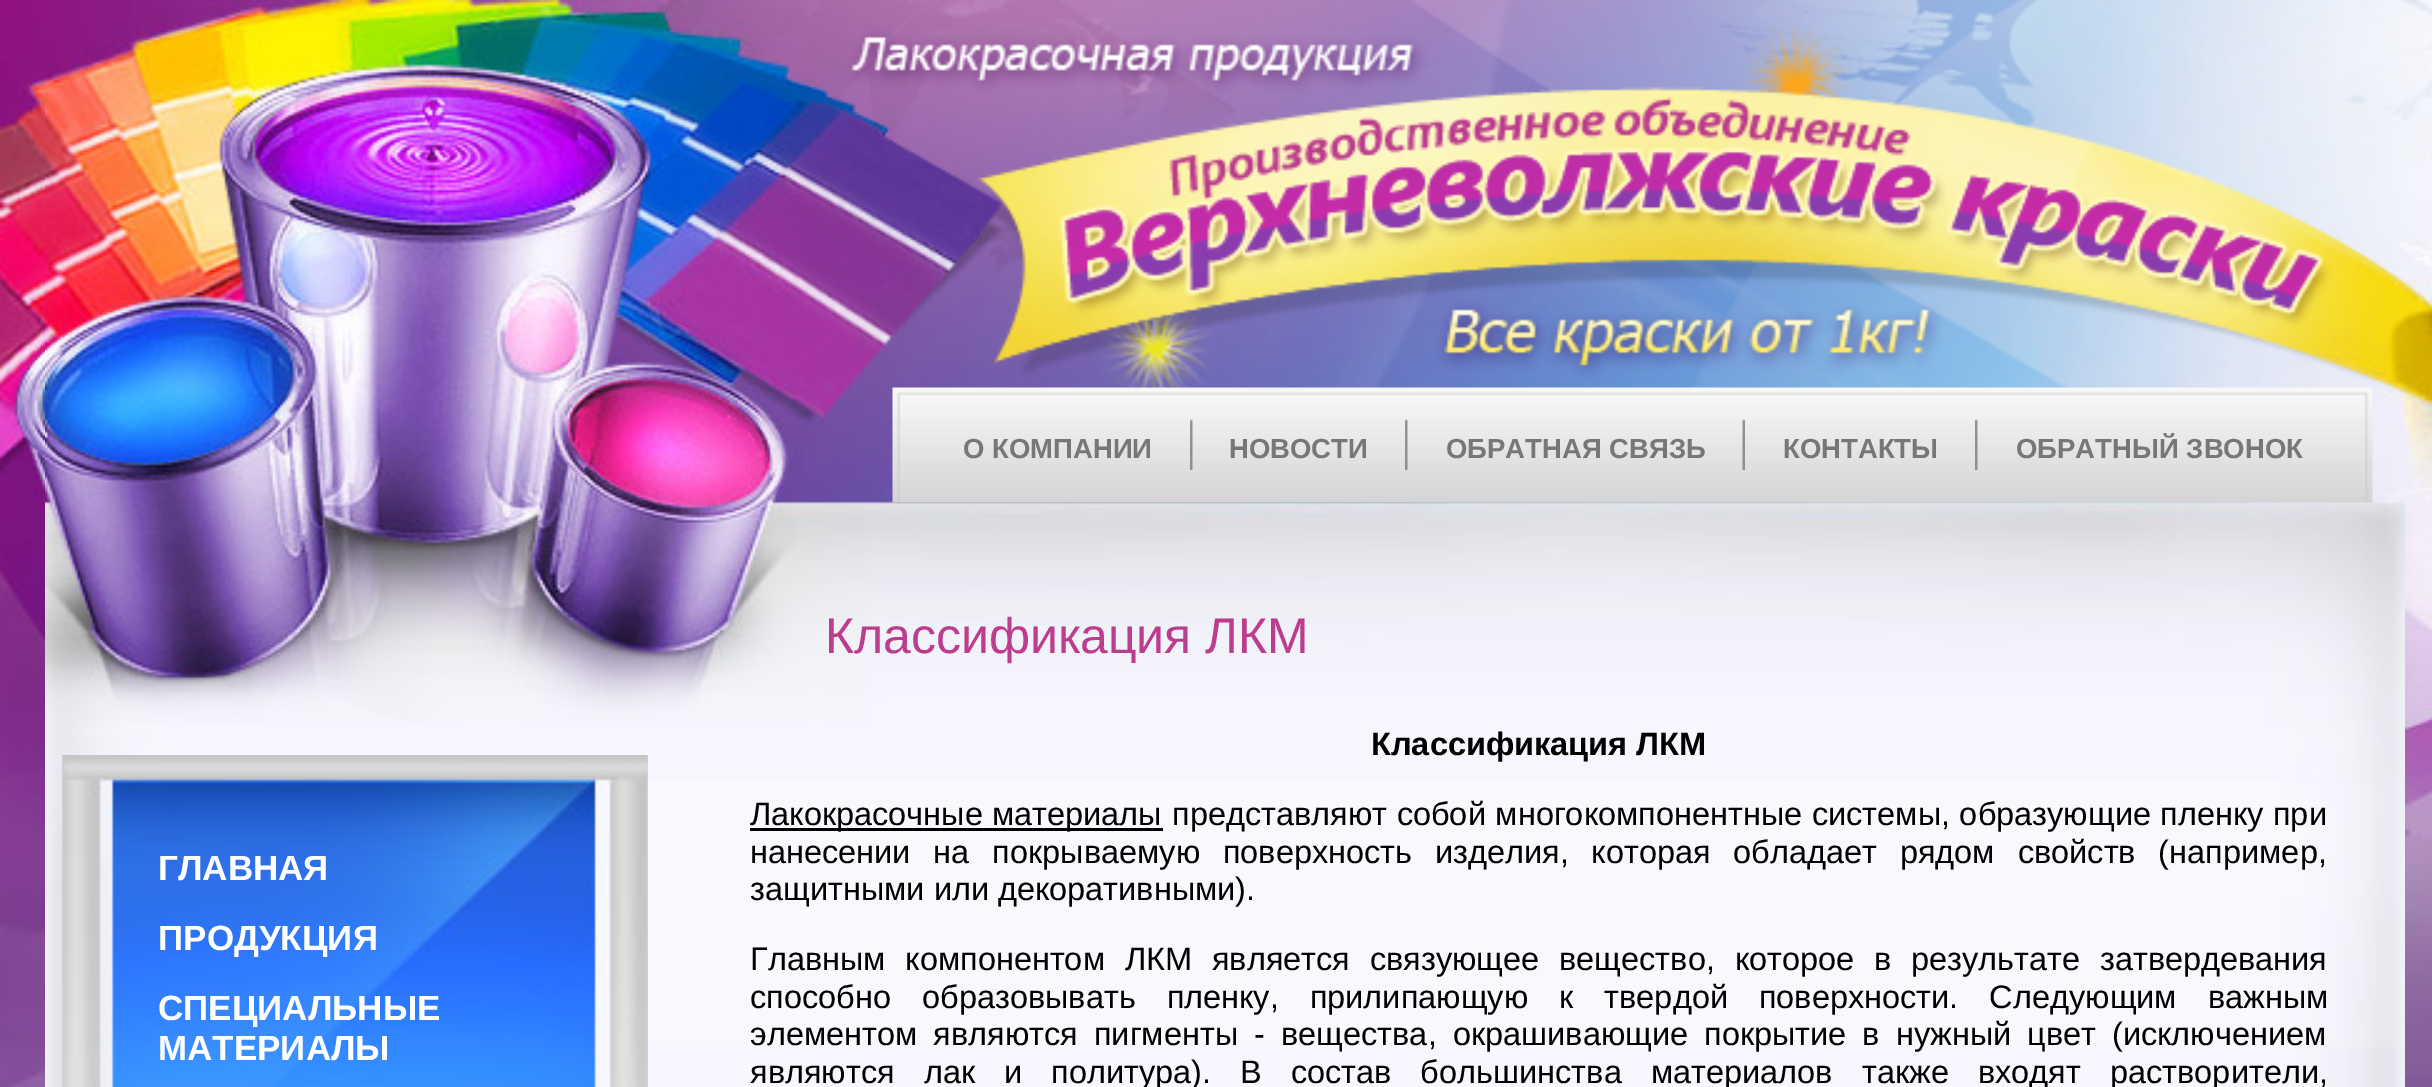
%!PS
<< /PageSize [2432 1087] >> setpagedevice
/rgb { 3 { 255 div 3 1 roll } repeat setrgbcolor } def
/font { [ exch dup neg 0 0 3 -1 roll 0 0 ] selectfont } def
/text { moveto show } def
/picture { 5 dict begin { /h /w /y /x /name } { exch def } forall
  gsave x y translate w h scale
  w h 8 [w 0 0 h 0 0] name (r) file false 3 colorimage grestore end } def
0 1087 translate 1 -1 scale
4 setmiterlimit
130 90 152 rgb
0 0 2432 1087 rectfill
(img_01.rgb) 0 0 45 1087 picture
(img_02.rgb) 45 1047 2360 40 picture
(img_03.rgb) 45 0 2360 1047 picture
(img_04.rgb) 892 387 8 116 picture
(img_05.rgb) 900 387 1465 116 picture
(img_06.rgb) 1190 419 3 51 picture
(img_06.rgb) 1405 419 3 51 picture
(img_07.rgb) 1742 419 3 51 picture
(img_06.rgb) 1975 419 3 51 picture
(img_08.rgb) 2365 387 8 116 picture
(img_09.rgb) 62 755 586 332 picture
(img_10.rgb) 62 755 586 332 picture
0 0 0 rgb
750 828 413 3 rectfill
(img_11.rgb) 2405 0 27 1076 picture
/LiberationSans-Bold 27.5 font
119 119 119 rgb
(О КОМПАНИИ) 963 458 text
(НОВОСТИ) 1229 458 text
(ОБРАТНАЯ СВЯЗЬ) 1446 458 text
(КОНТАКТЫ) 1783 458 text
(ОБРАТНЫЙ ЗВОНОК) 2016 458 text
/LiberationSans-Bold 35 font
255 255 255 rgb
(ГЛАВНАЯ) 158 880 text
(ПРОДУКЦИЯ) 158 950 text
(СПЕЦИАЛЬНЫЕ) 158 1020 text
(МАТЕРИАЛЫ) 158 1060 text
/LiberationSans-Regular 50 font
188 60 141 rgb
(Классификация ЛКМ) 825 653 text
/LiberationSans-Bold 32.5 font
0 0 0 rgb
(Классификация ЛКМ) 1371 755 text
/LiberationSans-Regular 32.5 font
(Лакокрасочные материалы) 750 825 text
1172 825 moveto 0.5 0 32 (представляют собой многокомпонентные системы, образующие пленку при) widthshow
750 863 moveto 13.75 0 32 (нанесении на покрываемую поверхность изделия, которая обладает рядом свойств \(например,) widthshow
(защитными или декоративными\).) 750 900 text
750 970 moveto 10.75 0 32 (Главным компонентом ЛКМ является связующее вещество, которое в результате затвердевания) widthshow
750 1008 moveto 22 0 32 (способно образовывать пленку, прилипающую к твердой поверхности. Следующим важным) widthshow
750 1045 moveto 7 0 32 (элементом являются пигменты - вещества, окрашивающие покрытие в нужный цвет \(исключением) widthshow
750 1083 moveto 20 0 32 (являются лак и политура\). В состав большинства материалов также входят растворители,) widthshow
showpage
